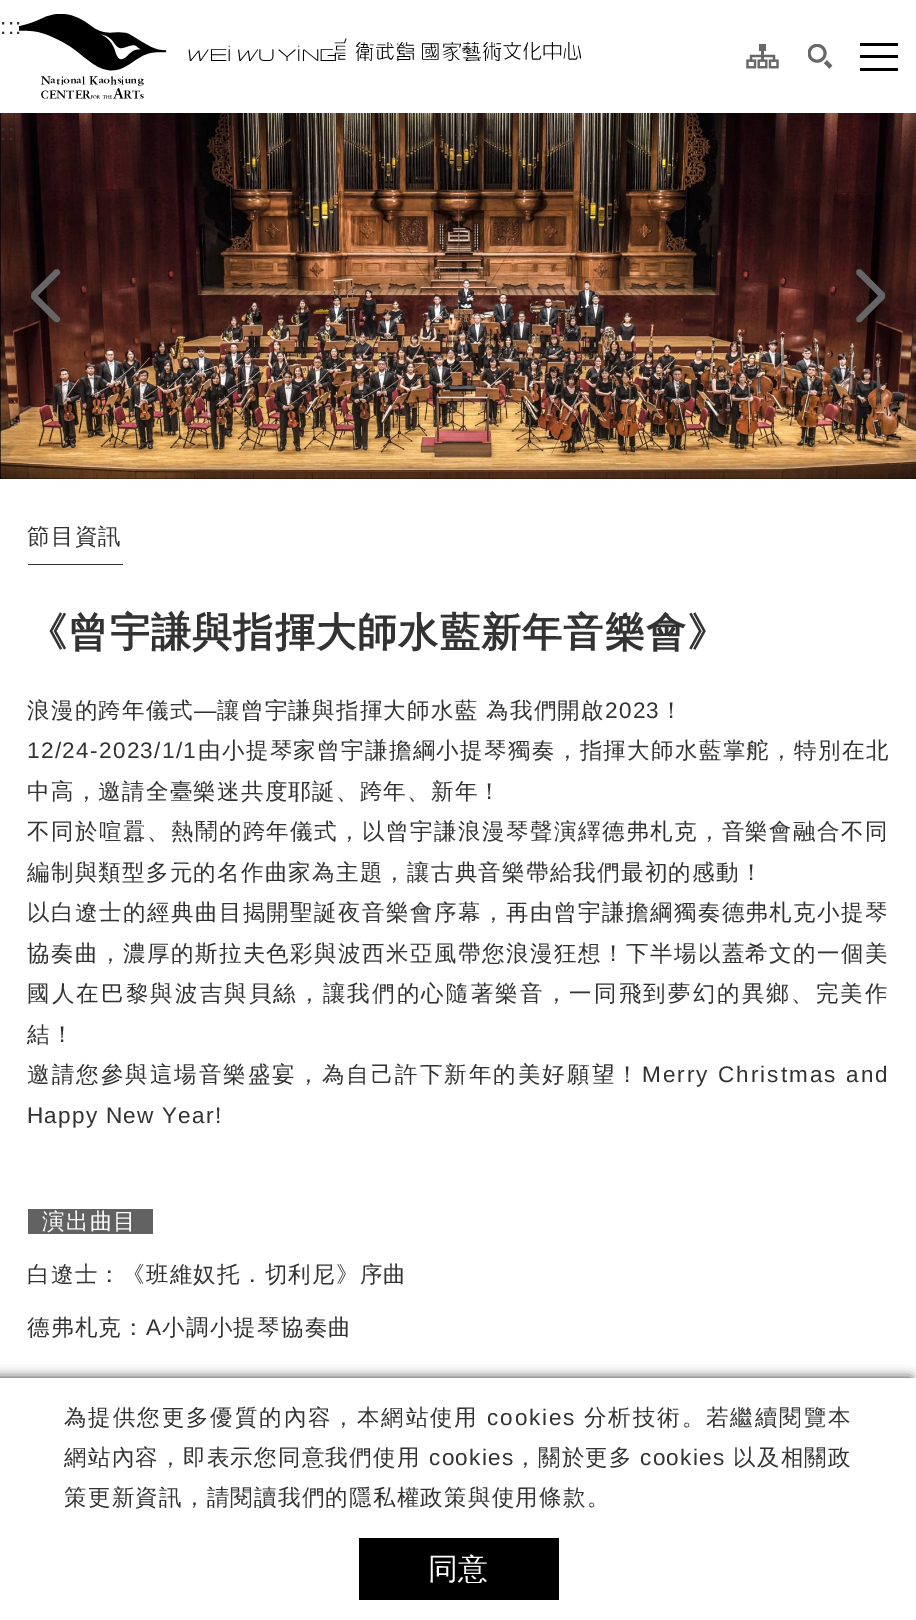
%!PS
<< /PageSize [916 1620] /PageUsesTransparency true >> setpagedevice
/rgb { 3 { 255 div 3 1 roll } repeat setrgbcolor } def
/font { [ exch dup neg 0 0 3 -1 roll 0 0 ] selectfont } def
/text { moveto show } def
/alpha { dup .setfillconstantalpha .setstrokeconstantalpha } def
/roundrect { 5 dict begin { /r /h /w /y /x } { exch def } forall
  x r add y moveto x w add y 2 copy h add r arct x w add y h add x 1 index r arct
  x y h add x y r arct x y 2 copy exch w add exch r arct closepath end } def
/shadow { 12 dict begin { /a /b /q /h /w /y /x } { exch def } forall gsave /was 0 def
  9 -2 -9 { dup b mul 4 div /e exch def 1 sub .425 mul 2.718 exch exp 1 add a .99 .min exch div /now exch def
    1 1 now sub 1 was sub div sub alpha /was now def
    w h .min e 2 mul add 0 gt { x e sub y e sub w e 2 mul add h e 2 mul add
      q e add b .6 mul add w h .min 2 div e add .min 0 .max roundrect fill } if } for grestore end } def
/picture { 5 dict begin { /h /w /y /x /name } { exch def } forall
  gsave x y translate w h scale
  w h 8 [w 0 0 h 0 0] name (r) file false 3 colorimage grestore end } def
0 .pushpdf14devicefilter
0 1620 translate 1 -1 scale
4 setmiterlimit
255 255 255 rgb
0 0 916 1620 rectfill
(img_02.rgb) 746 44 33 25 picture
(img_03.rgb) 808 44 25 25 picture
0 0 0 rgb
860 43 38 3 rectfill
860 55 38 3 rectfill
860 68 38 3 rectfill
0 113 916 366 rectfill
(img_04.rgb) 0 113 916 366 picture
102 102 102 rgb
59 270 moveto 1.5 1.5 1.5 3.5 0 4.5 rcurveto -22.5 22.5 rlineto -1 1.5 -3 1.5 -4.5 0 rcurveto -1 -1 -1 -3 0 -4.5 rcurveto 22.5 -22.5 rlineto 1.5 -1 3.5 -1 4.5 0 rcurveto closepath fill
32 294.5 moveto 1.5 -1.5 3.5 -1.5 4.5 0 rcurveto 22.5 22.5 rlineto 1.5 1 1.5 3 0 4.5 rcurveto -1 1 -3 1 -4.5 0 rcurveto -22.5 -22.5 rlineto -1 -1.5 -1 -3.5 0 -4.5 rcurveto closepath fill
857 270 moveto 1.5 -1 3.5 -1 4.5 0 rcurveto 22.5 22.5 rlineto 1.5 1.5 1.5 3.5 0 4.5 rcurveto -1 1.5 -3 1.5 -4.5 0 rcurveto -22.5 -22.5 rlineto -1 -1 -1 -3 0 -4.5 rcurveto closepath fill
884 294.5 moveto 1.5 1 1.5 3 0 4.5 rcurveto -22.5 22.5 rlineto -1 1 -3 1 -4.5 0 rcurveto -1 -1.5 -1 -3.5 0 -4.5 rcurveto 22.5 -22.5 rlineto 1.5 -1.5 3.5 -1.5 4.5 0 rcurveto closepath fill
51 51 51 rgb
28 564 95 1 rectfill
98 98 98 rgb
28 1209 125 25 rectfill
51 51 51 rgb
-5 1378 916 242 0 6 1 shadow
255 255 255 rgb
0 1378 916 242 rectfill
0 0 0 rgb
359 1538 200 62 rectfill
/LiberationSans-Regular 22.5 font
51 51 51 rgb
0 34 moveto 1.25 0 (:::) ashow
(img_01.rgb) 19 14 562 85 picture
0 140 moveto 1.25 0 (::) ashow
/WenQuanYiZenHei-Medium 22.5 font
27 544 moveto 1.25 0 (節目資訊) ashow
/WenQuanYiZenHei-Bold 40 font
27 646 moveto 1.25 0 (《曾宇謙與指揮大師水藍新年音樂會》) ashow
/WenQuanYiZenHei-Medium 22.5 font
27 718 moveto 1.25 0 (浪漫的跨年儀式) ashow
/LiberationSans-Regular 22.5 font
194 718 moveto 1.25 0 (—) ashow
/WenQuanYiZenHei-Medium 22.5 font
217 718 moveto 1.25 0 (讓曾宇謙與指揮大師水藍 為我們開啟) ashow
/LiberationSans-Regular 22.5 font
605 718 moveto 1.25 0 (2023) ashow
/WenQuanYiZenHei-Medium 22.5 font
660 718 moveto 1.25 0 (！) ashow
/LiberationSans-Regular 22.5 font
27 758 moveto 1.35 0 (12/24-2023/1/1) ashow
/WenQuanYiZenHei-Medium 22.5 font
198 758 moveto 1.35 0 (由小提琴家曾宇謙擔綱小提琴獨奏，指揮大師水藍掌舵，特別在北) ashow
27 799 moveto 1.25 0 (中高，邀請全臺樂迷共度耶誕、跨年、新年！) ashow
27 839 moveto 1.45 0 (不同於喧囂、熱鬧的跨年儀式，以曾宇謙浪漫琴聲演繹德弗札克，音樂會融合不同) ashow
27 880 moveto 1.25 0 (編制與類型多元的名作曲家為主題，讓古典音樂帶給我們最初的感動！) ashow
27 920 moveto 1.45 0 (以白遼士的經典曲目揭開聖誕夜音樂會序幕，再由曾宇謙擔綱獨奏德弗札克小提琴) ashow
27 961 moveto 1.45 0 (協奏曲，濃厚的斯拉夫色彩與波西米亞風帶您浪漫狂想！下半場以蓋希文的一個美) ashow
27 1001 moveto 2.15 0 (國人在巴黎與波吉與貝絲，讓我們的心隨著樂音，一同飛到夢幻的異鄉、完美作) ashow
27 1042 moveto 1.25 0 (結！) ashow
27 1082 moveto 2.05 0 (邀請您參與這場音樂盛宴，為自己許下新年的美好願望！) ashow
/LiberationSans-Regular 22.5 font
642 1082 moveto 2.05 0 (Merry Christmas and) ashow
27 1123 moveto 1.25 0 (Happy New Year!) ashow
/WenQuanYiZenHei-Medium 22.5 font
255 255 255 rgb
42 1229 moveto 1.25 0 (演出曲目) ashow
51 51 51 rgb
27 1282 moveto 1.25 0 (白遼士：《班維奴托．切利尼》序曲) ashow
27 1335 moveto 1.25 0 (德弗札克：) ashow
/LiberationSans-Regular 22.5 font
146 1335 moveto 1.25 0 (A) ashow
/WenQuanYiZenHei-Medium 22.5 font
162 1335 moveto 1.25 0 (小調小提琴協奏曲) ashow
64 1425 moveto 1.9 0 (為提供您更多優質的內容，本網站使用) ashow
/LiberationSans-Regular 22.5 font
487 1425 moveto 1.9 0 (cookies) ashow
/WenQuanYiZenHei-Medium 22.5 font
584 1425 moveto 1.9 0 (分析技術。若繼續閱覽本) ashow
64 1465 moveto 1.25 0 (網站內容，即表示您同意我們使用) ashow
/LiberationSans-Regular 22.5 font
429 1465 moveto 1.25 0 (cookies) ashow
/WenQuanYiZenHei-Medium 22.5 font
514 1465 moveto 1.25 0 (，關於更多) ashow
/LiberationSans-Regular 22.5 font
640 1465 moveto 1.25 0 (cookies) ashow
/WenQuanYiZenHei-Medium 22.5 font
733 1465 moveto 1.25 0 (以及相關政) ashow
64 1505 moveto 1.25 0 (策更新資訊，請閱讀我們的隱私權政策與使用條款。) ashow
/WenQuanYiZenHei-Medium 30 font
255 255 255 rgb
(同意) 428 1579 text
.poppdf14devicefilter showpage
